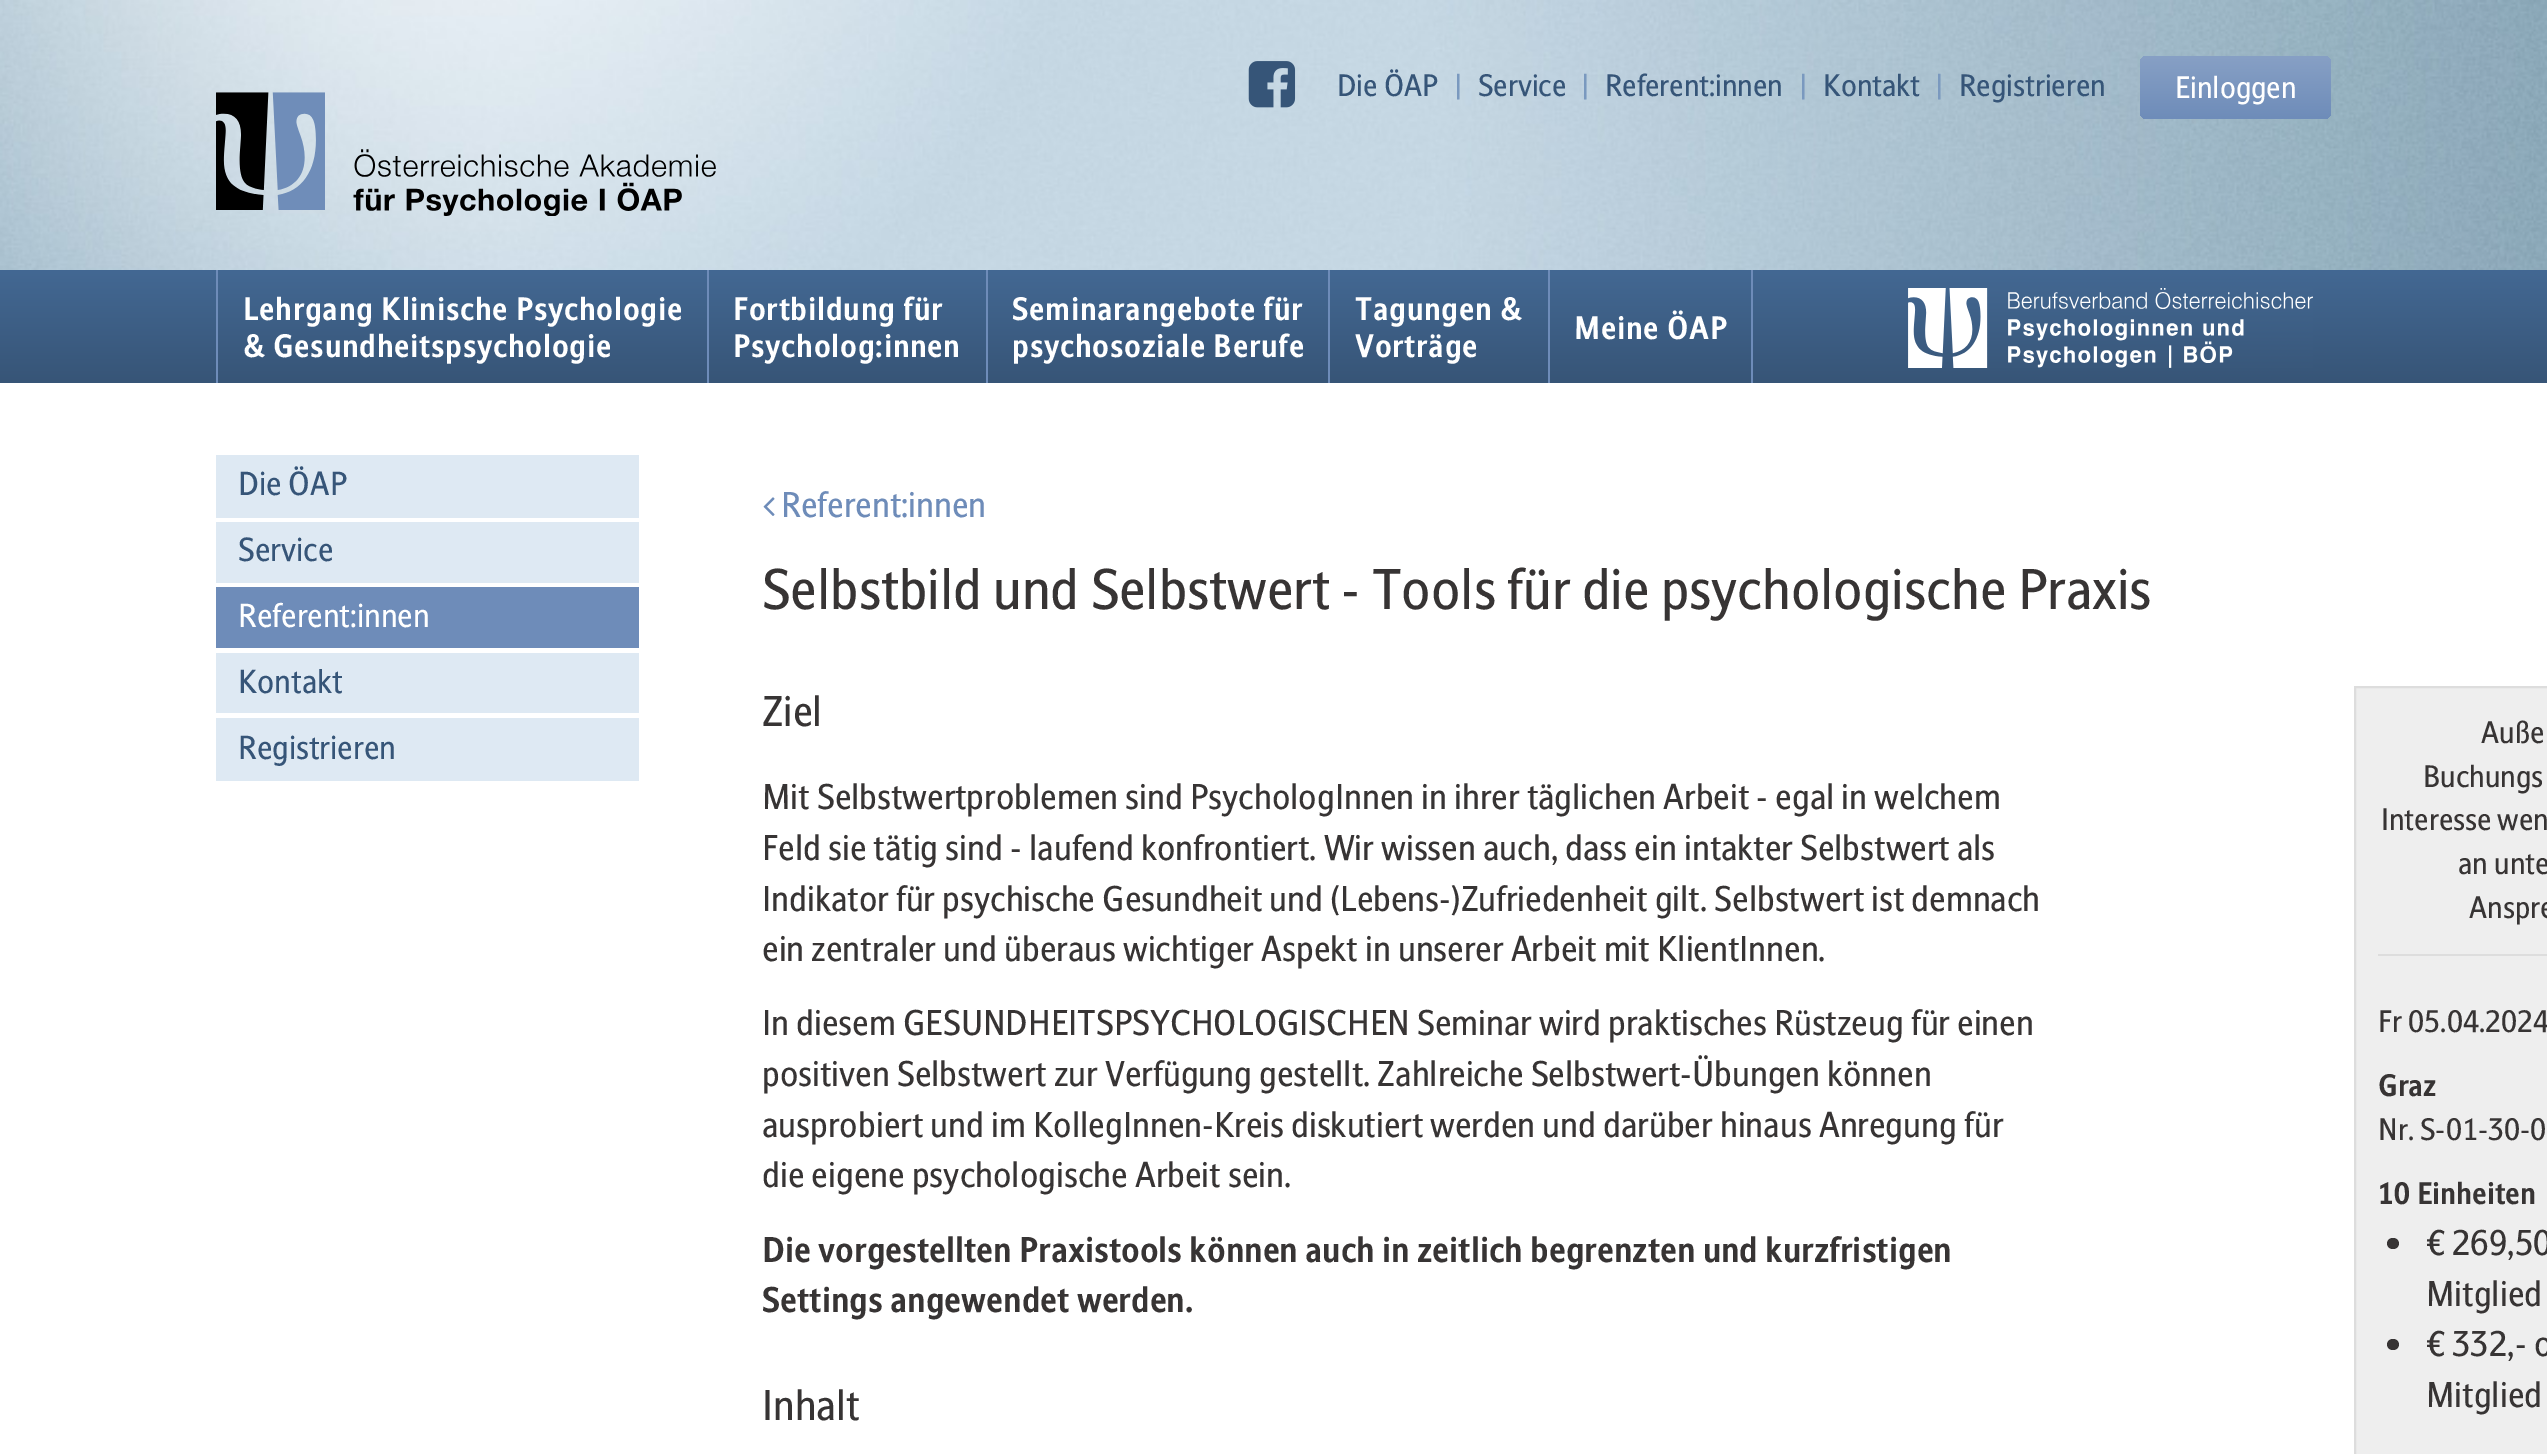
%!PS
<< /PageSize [2547 1454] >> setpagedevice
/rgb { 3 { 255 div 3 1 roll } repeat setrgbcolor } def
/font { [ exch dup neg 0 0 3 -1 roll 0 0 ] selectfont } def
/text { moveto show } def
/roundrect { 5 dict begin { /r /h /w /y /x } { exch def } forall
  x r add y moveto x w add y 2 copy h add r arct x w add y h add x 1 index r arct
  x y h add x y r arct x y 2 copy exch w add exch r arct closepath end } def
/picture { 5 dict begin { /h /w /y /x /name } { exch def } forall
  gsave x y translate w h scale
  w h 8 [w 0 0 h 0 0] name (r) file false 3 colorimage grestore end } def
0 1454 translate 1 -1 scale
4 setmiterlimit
255 255 255 rgb
0 0 2547 1454 rectfill
(img_01.rgb) 0 0 2547 270 picture
(img_02.rgb) 1248 61 48 47 picture
gsave 2140 56 191 63 7 roundrect clip newpath
<< /ShadingType 2 /ColorSpace /DeviceRGB /Coords [2235 56 2235 119] /Extend [true true] /Function << /FunctionType 2 /Domain [0 1] /C0 [0.529 0.627 0.773] /C1 [0.431 0.549 0.725] /N 1 >> >> shfill grestore
(img_03.rgb) 216 92 500 124 picture
gsave 0 270 moveto 2547 0 rlineto 0 113 rlineto -2547 0 rlineto closepath clip newpath
<< /ShadingType 2 /ColorSpace /DeviceRGB /Coords [1274 270 1274 383] /Extend [true true] /Function << /FunctionType 2 /Domain [0 1] /C0 [0.263 0.408 0.576] /C1 [0.216 0.333 0.467] /N 1 >> >> shfill grestore
110 140 185 rgb
707 270 2 113 rectfill
216 270 2 113 rectfill
986 270 2 113 rectfill
1328 270 2 113 rectfill
1548 270 2 113 rectfill
1751 270 2 113 rectfill
(img_04.rgb) 1908 288 405 80 picture
222 233 243 rgb
216 455 423 63 rectfill
216 522 423 61 rectfill
110 140 185 rgb
216 587 423 61 rectfill
222 233 243 rgb
216 653 423 60 rectfill
216 718 423 63 rectfill
(img_05.rgb) 763 497 12 19 picture
238 238 238 rgb
2355 687 moveto 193 0 rlineto 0 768 rlineto -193 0 rlineto closepath gsave fill grestore
221 221 221 rgb
2 setlinewidth
stroke
2378 954 169 2 rectfill
55 52 52 rgb
2387 1238 12 11 5.5 roundrect fill
2387 1339 12 11 5.5 roundrect fill
/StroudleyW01-Regular 29.25 font
54 85 120 rgb
(Die ÖAP) 1337 96 text
122 153 191 rgb
(|) 1453 96 text
54 85 120 rgb
(Service) 1478 96 text
122 153 191 rgb
(|) 1580 96 text
54 85 120 rgb
(Referent:innen) 1605 96 text
122 153 191 rgb
(|) 1798 96 text
54 85 120 rgb
(Kontakt) 1823 96 text
122 153 191 rgb
(|) 1934 96 text
54 85 120 rgb
(Registrieren) 1959 96 text
255 255 255 rgb
(Einloggen) 2175 98 text
/StroudleyW01-Bold 30.6 font
243 320 moveto 0.7 0 (Lehrgang Klinische Psychologie) ashow
243 357 moveto 0.7 0 (& Gesundheitspsychologie) ashow
733 320 moveto 0.7 0 (Fortbildung für) ashow
733 357 moveto 0.7 0 (Psycholog:innen) ashow
1012 320 moveto 0.7 0 (Seminarangebote für) ashow
1012 357 moveto 0.7 0 (psychosoziale Berufe) ashow
1355 320 moveto 0.7 0 (Tagungen &) ashow
1355 357 moveto 0.7 0 (Vorträge) ashow
1574 339 moveto 0.7 0 (Meine ÖAP) ashow
/StroudleyW01-Regular 31.5 font
54 85 120 rgb
(Die ÖAP) 238 495 text
(Service) 238 561 text
255 255 255 rgb
(Referent:innen) 238 627 text
54 85 120 rgb
(Kontakt) 238 693 text
(Registrieren) 238 759 text
/StroudleyW01-Regular 33.75 font
110 140 185 rgb
(Referent:innen) 781 517 text
/StroudleyW01-Regular 54 font
55 52 52 rgb
(Selbstbild und Selbstwert - Tools für die psychologische Praxis) 762 609 text
/StroudleyW01-Regular 40.5 font
(Ziel) 762 726 text
/StroudleyW01-Regular 33.75 font
(Mit Selbstwertproblemen sind PsychologInnen in ihrer täglichen Arbeit - egal in welchem) 762 809 text
(Feld sie tätig sind - laufend konfrontiert. Wir wissen auch, dass ein intakter Selbstwert als) 762 860 text
(Indikator für psychische Gesundheit und \(Lebens-\)Zufriedenheit gilt. Selbstwert ist demnach) 762 911 text
(ein zentraler und überaus wichtiger Aspekt in unserer Arbeit mit KlientInnen.) 762 961 text
/StroudleyW01-Regular 29.25 font
(Auße) 2481 743 text
(Buchungs) 2423 787 text
(Interesse wen) 2381 830 text
(an unte) 2458 874 text
(Anspre) 2469 918 text
(Fr 05.04.2024) 2378 1032 text
/StroudleyW01-Bold 29.25 font
(Graz) 2378 1096 text
/StroudleyW01-Regular 29.25 font
(Nr. S-01-30-0) 2378 1140 text
/StroudleyW01-Bold 29.25 font
(10 Einheiten) 2378 1204 text
/StroudleyW01-Regular 33.75 font
(€ 269,50) 2426 1255 text
(Mitglied) 2426 1306 text
(€ 332,- o) 2426 1356 text
(Mitglied) 2426 1407 text
(In diesem GESUNDHEITSPSYCHOLOGISCHEN Seminar wird praktisches Rüstzeug für einen) 762 1035 text
(positiven Selbstwert zur Verfügung gestellt. Zahlreiche Selbstwert-Übungen können) 762 1086 text
(ausprobiert und im KollegInnen-Kreis diskutiert werden und darüber hinaus Anregung für) 762 1137 text
(die eigene psychologische Arbeit sein.) 762 1187 text
/StroudleyW01-Bold 33.75 font
(Die vorgestellten Praxistools können auch in zeitlich begrenzten und kurzfristigen) 762 1262 text
(Settings angewendet werden.) 762 1312 text
/StroudleyW01-Regular 40.5 font
(Inhalt) 762 1420 text
showpage
